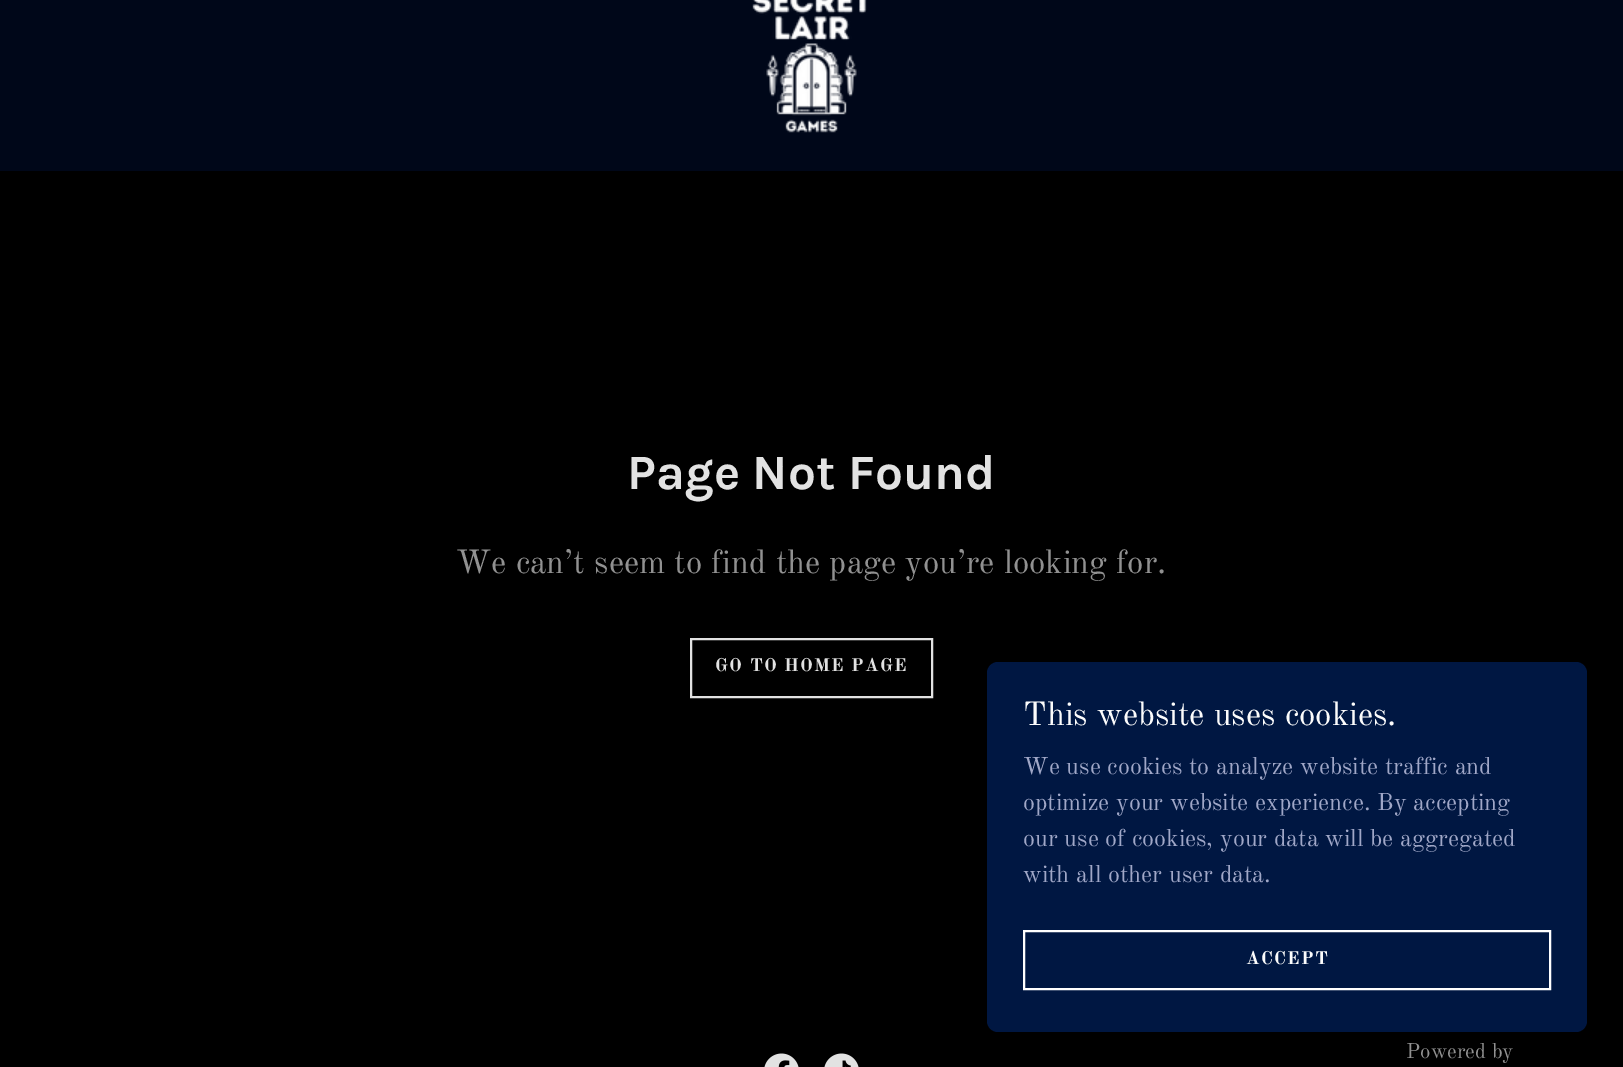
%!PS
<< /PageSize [1623 1067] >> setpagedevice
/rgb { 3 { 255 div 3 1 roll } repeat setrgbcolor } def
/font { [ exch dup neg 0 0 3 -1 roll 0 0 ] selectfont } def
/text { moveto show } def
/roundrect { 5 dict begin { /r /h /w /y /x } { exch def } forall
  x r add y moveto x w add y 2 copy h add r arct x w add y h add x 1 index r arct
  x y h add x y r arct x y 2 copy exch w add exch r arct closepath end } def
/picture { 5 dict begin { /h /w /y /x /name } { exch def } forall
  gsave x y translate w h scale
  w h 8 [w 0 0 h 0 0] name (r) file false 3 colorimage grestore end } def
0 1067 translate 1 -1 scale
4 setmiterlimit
0 0 0 rgb
0 0 1623 1067 rectfill
0 7 25 rgb
0 0 1623 171 rectfill
(img_01.rgb) 752 0 115 133 picture
226 226 226 rgb
2 setlinewidth
691 639 241 58 rectstroke
0 23 66 rgb
987 662 600 370 11 roundrect fill
255 255 255 rgb
1024 931 526 58 rectstroke
(img_02.rgb) 764 1053 35 14 picture
(img_03.rgb) 824 1053 35 14 picture
/Karla-Bold 49.5 font
226 226 226 rgb
(Page Not Found) 627 489 text
/OldStandardTT-Regular 33 font
145 145 145 rgb
(We can’t seem to find the page you’re looking for.) 456 573 text
/OldStandardTT-Bold 18 font
226 226 226 rgb
715 671 moveto 1.25 0 (GO TO HOME PAGE) ashow
/OldStandardTT-Regular 33 font
252 252 252 rgb
(This website uses cookies.) 1023 725 text
/OldStandardTT-Regular 24 font
160 167 199 rgb
(We use cookies to analyze website traffic and) 1023 774 text
(optimize your website experience. By accepting) 1023 810 text
(our use of cookies, your data will be aggregated) 1023 846 text
(with all other user data.) 1023 882 text
/OldStandardTT-Bold 18 font
252 252 252 rgb
1246 964 moveto 1.25 0 (ACCEPT) ashow
/OldStandardTT-Regular 21 font
145 145 145 rgb
(Powered by) 1406 1058 text
showpage
